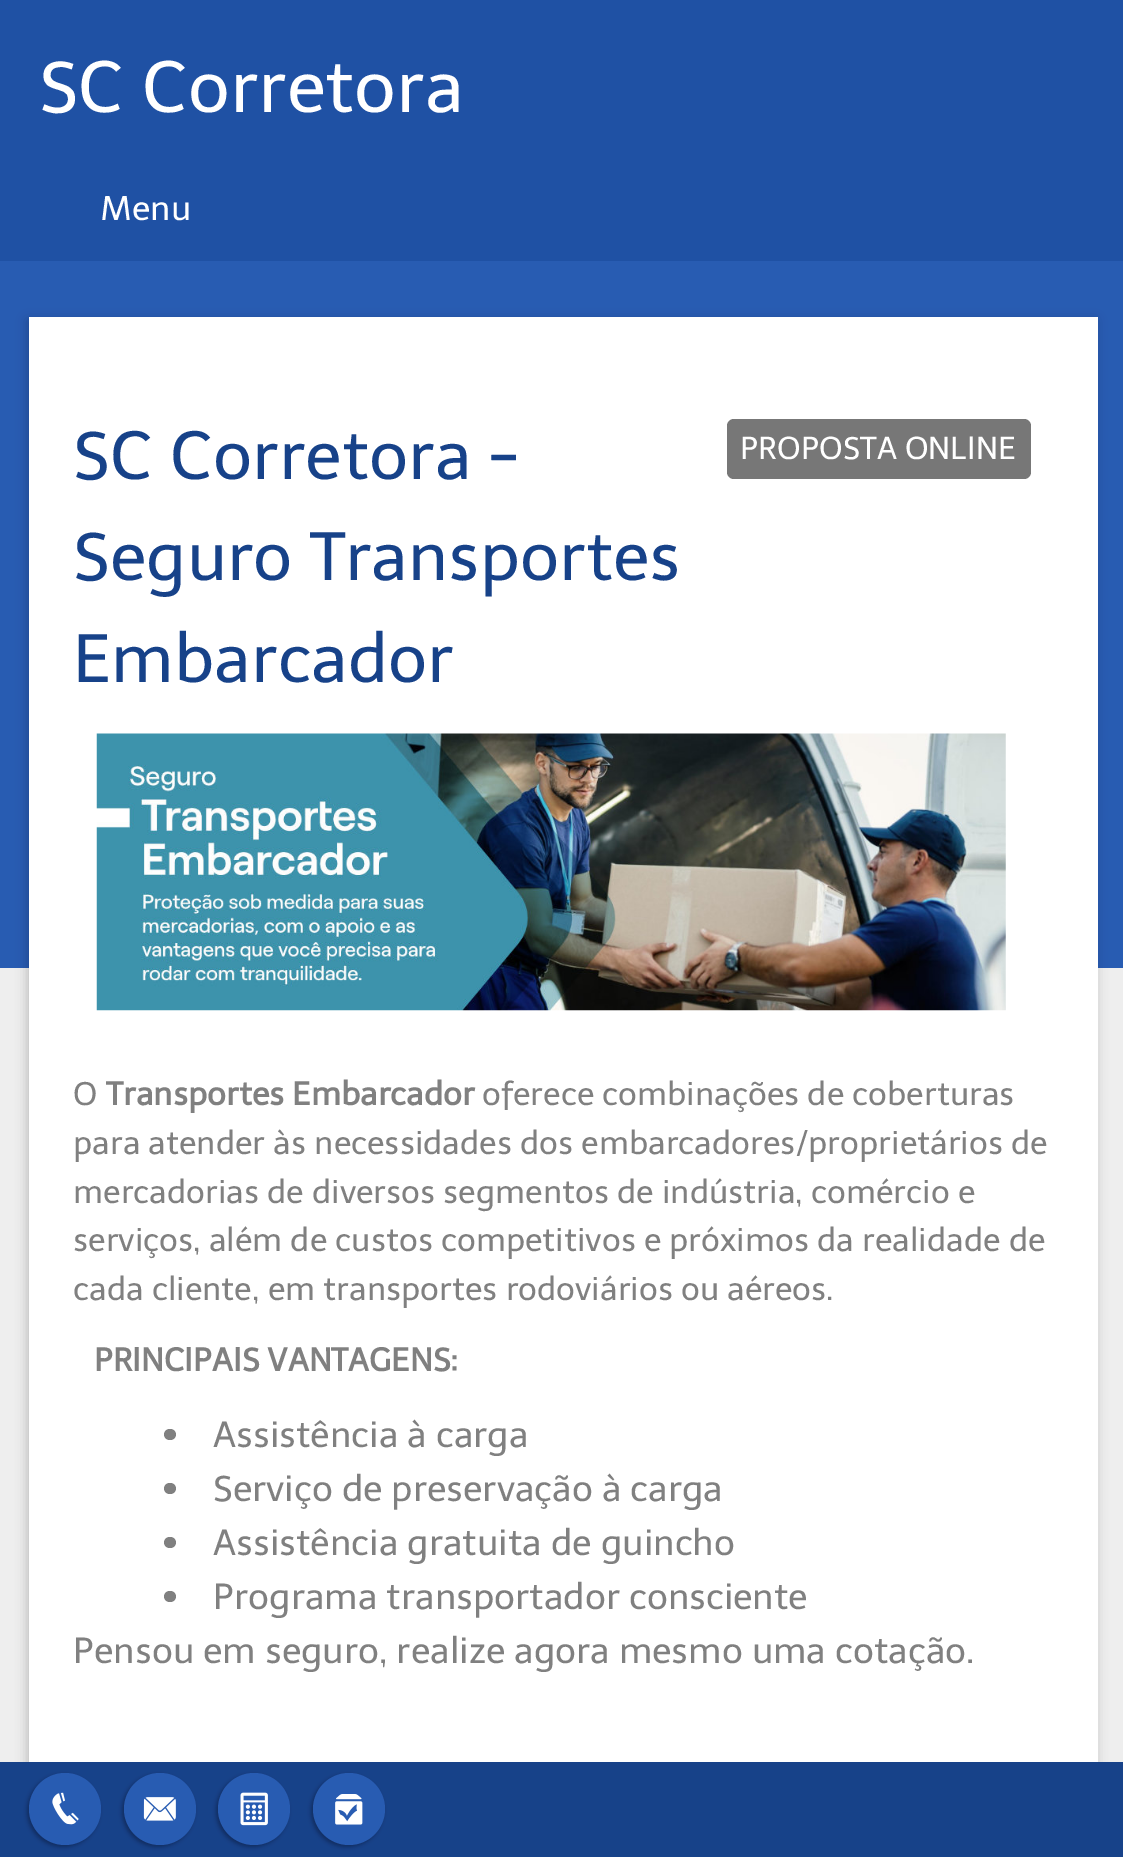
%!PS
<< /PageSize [1123 1857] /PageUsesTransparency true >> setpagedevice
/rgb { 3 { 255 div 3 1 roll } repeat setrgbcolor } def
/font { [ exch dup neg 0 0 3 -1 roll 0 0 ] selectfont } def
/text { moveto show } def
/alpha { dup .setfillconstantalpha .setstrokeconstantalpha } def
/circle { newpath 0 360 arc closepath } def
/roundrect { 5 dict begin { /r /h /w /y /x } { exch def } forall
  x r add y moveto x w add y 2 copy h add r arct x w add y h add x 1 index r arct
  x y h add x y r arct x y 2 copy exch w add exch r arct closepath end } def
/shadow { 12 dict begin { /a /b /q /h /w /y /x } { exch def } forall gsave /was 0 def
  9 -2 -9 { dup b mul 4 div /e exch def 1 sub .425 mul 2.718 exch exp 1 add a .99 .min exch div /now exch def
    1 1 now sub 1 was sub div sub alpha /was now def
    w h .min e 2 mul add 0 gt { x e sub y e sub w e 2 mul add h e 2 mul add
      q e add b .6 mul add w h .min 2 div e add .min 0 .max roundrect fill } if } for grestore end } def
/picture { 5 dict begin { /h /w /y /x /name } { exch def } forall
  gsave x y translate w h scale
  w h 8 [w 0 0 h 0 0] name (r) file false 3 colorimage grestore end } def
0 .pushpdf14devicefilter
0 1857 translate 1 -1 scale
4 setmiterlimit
238 238 238 rgb
0 0 1123 1857 rectfill
40 92 178 rgb
0 261 1123 707 rectfill
31 81 164 rgb
0 0 1123 261 rectfill
0 0 0 rgb
27 320 1069 1473 0 5.5 0.2 shadow
255 255 255 rgb
29 317 1069 1445 rectfill
(img_01.rgb) 96 733 910 278 picture
128 128 128 rgb
164 1429 12 11 5.5 roundrect fill
164 1483 12 11 5.5 roundrect fill
164 1537 12 11 5.5 roundrect fill
164 1591 12 11 5.5 roundrect fill
119 119 119 rgb
727 419 304 60 7 roundrect fill
23 66 137 rgb
0 1762 1123 95 rectfill
0 0 0 rgb
27 1775 72 72 36 2 0.3 shadow
40 92 178 rgb
65 1809 36 circle fill
(img_02.rgb) 52 1792 27 33 picture
0 0 0 rgb
122 1775 72 72 36 2 0.3 shadow
40 92 178 rgb
160 1809 36 circle fill
(img_03.rgb) 143 1797 33 24 picture
0 0 0 rgb
216 1775 72 72 36 2 0.3 shadow
40 92 178 rgb
254 1809 36 circle fill
(img_04.rgb) 240 1792 28 34 picture
0 0 0 rgb
311 1775 72 72 36 2 0.3 shadow
40 92 178 rgb
349 1809 36 circle fill
(img_05.rgb) 335 1794 28 31 picture
/Telex-Regular 72 font
255 255 255 rgb
(SC Corretora) 39 112 text
/Telex-Regular 34 font
(Menu) 100 220 text
/Telex-Regular 67.5 font
23 66 137 rgb
(SC Corretora -) 73 479 text
(Seguro Transportes) 73 580 text
(Embarcador) 73 682 text
/Telex-Regular 32.4 font
128 128 128 rgb
(O) 73 1105 text
/Telex-Bold 32.4 font
(Transportes Embarcador) 106 1105 text
/Telex-Regular 32.4 font
(oferece combinações de coberturas) 482 1105 text
(para atender às necessidades dos embarcadores/proprietários de) 73 1154 text
(mercadorias de diversos segmentos de indústria, comércio e) 73 1203 text
(serviços, além de custos competitivos e próximos da realidade de) 73 1251 text
(cada cliente, em transportes rodoviários ou aéreos.) 73 1300 text
/Telex-Bold 32.4 font
(PRINCIPAIS VANTAGENS:) 94 1371 text
/Telex-Regular 36 font
(Assistência à carga) 213 1447 text
(Serviço de preservação à carga) 213 1501 text
(Assistência gratuita de guincho) 213 1555 text
(Programa transportador consciente) 213 1609 text
(Pensou em seguro, realize agora mesmo uma cotação.) 73 1663 text
/Telex-Regular 31.5 font
255 255 255 rgb
(PROPOSTA ONLINE) 740 459 text
.poppdf14devicefilter showpage
